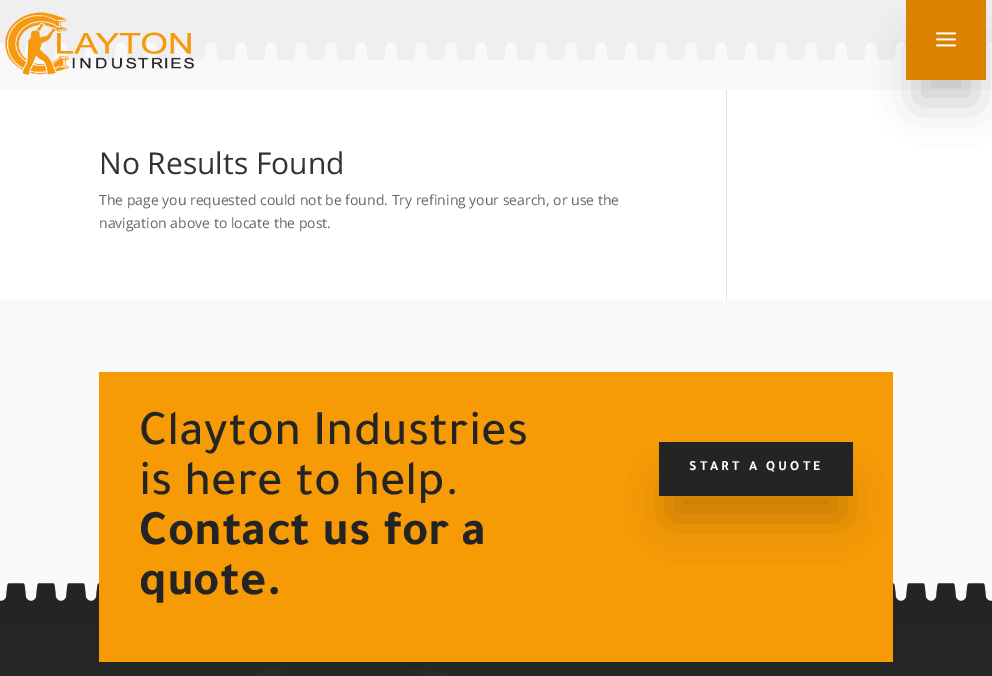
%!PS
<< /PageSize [992 676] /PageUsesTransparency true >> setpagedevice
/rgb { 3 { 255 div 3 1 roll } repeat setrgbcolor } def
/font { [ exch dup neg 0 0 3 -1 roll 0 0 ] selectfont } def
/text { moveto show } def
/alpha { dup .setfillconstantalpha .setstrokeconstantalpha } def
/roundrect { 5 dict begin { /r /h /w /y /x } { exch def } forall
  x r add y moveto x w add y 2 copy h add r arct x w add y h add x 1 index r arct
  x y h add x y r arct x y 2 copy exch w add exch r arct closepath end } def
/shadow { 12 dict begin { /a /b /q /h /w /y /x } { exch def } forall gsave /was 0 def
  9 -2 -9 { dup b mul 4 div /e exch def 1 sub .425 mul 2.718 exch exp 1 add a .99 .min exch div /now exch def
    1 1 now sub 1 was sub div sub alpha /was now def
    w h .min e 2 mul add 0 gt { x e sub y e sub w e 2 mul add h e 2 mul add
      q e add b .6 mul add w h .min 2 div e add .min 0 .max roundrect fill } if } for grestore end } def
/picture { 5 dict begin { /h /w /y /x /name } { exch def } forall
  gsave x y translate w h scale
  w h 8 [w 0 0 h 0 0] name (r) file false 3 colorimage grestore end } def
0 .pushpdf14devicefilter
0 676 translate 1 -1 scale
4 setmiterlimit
249 249 249 rgb
0 0 992 676 rectfill
(img_01.rgb) 0 0 992 60 picture
(img_02.rgb) 5 12 189 63 picture
219 130 0 rgb
906 0 80 80 rectfill
255 255 255 rgb
0 90 992 210 rectfill
gsave
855 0 moveto 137 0 rlineto 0 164 rlineto -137 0 rlineto closepath 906 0 moveto 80 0 rlineto 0 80 rlineto -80 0 rlineto closepath eoclip newpath
0 0 0 rgb
916 43 60 60 0 20 0.2 shadow
grestore
(img_03.rgb) 936 32 20 15 picture
226 226 226 rgb
726 90 1 210 rectfill
(img_04.rgb) 0 583 992 23 picture
(img_05.rgb) 0 606 992 70 picture
246 154 6 rgb
99 372 794 290 rectfill
0 0 0 rgb
669 485 174 34 0 20 0.2 shadow
36 36 36 rgb
659 442 194 54 rectfill
/OpenSans-Regular 30 font
51 51 51 rgb
(No Results Found) 99 174 text
/OpenSans-Regular 14 font
102 102 102 rgb
(The page you requested could not be found. Try refining your search, or use the) 99 205 text
(navigation above to locate the post.) 99 228 text
/Tajawal-Medium 50 font
36 36 36 rgb
(Clayton Industries) 139 444 text
(is here to help.) 139 494 text
/Tajawal-Bold 50 font
(Contact us for a) 139 544 text
(quote.) 139 594 text
/Tajawal-Bold 14 font
255 255 255 rgb
689 470 moveto 3 0 (START A QUOTE) ashow
.poppdf14devicefilter showpage
